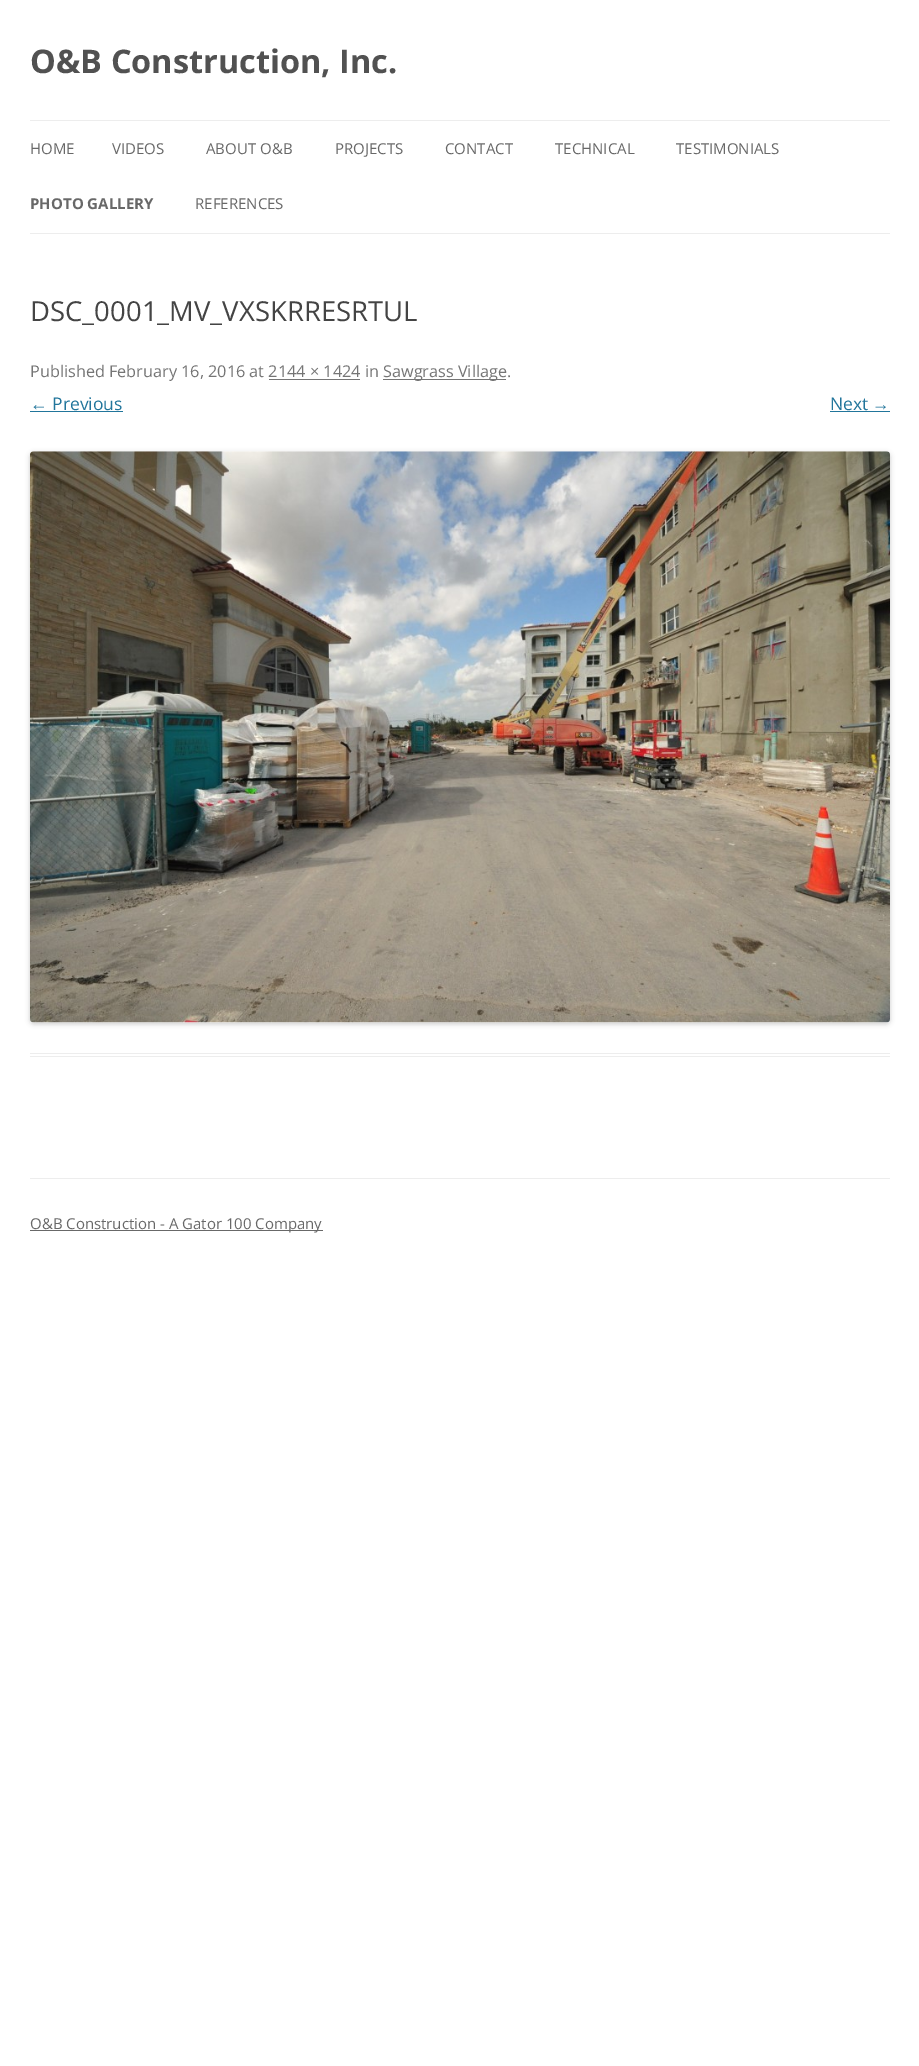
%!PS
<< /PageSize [919 2066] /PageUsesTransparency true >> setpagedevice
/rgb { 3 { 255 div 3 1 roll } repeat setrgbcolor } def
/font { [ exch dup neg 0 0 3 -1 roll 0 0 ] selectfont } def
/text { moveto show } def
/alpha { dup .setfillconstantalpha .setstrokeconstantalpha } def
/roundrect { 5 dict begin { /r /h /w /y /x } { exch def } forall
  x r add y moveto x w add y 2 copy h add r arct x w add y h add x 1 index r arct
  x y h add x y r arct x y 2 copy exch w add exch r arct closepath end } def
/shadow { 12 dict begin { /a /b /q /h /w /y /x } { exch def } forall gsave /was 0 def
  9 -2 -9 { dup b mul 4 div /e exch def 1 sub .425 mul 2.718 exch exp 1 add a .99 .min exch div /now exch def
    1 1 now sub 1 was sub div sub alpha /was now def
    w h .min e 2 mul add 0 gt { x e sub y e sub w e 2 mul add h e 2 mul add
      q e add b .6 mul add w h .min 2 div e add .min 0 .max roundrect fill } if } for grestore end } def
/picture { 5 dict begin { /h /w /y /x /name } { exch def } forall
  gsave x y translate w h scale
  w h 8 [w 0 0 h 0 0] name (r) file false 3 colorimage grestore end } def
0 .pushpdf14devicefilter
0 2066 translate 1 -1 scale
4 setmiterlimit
255 255 255 rgb
0 0 919 2066 rectfill
237 237 237 rgb
30 120 860 1 rectfill
30 233 860 1 rectfill
30 1053 860 1 rectfill
30 1056 860 1 rectfill
117 117 117 rgb
383 379 123 1 rectfill
269 379 91 1 rectfill
33 117 155 rgb
30 411 93 1 rectfill
830 411 60 1 rectfill
0 0 0 rgb
30 453 860 571 4 2.5 0.2 shadow
(img_01.rgb) 30 451 860 572 picture
237 237 237 rgb
30 1178 860 1 rectfill
104 104 104 rgb
30 1230 293 1 rectfill
/OpenSans-Bold 32.5 font
81 81 81 rgb
(O&B Construction, Inc.) 30 73 text
/OpenSans-Regular 15 font
104 104 104 rgb
(HOME) 30 154 text
(VIDEOS) 112 154 text
(ABOUT O&B) 206 154 text
(PROJECTS) 335 154 text
(CONTACT) 445 154 text
(TECHNICAL) 555 154 text
(TESTIMONIALS) 676 154 text
/OpenSans-Bold 15 font
(PHOTO GALLERY) 30 209 text
/OpenSans-Regular 15 font
(REFERENCES) 195 209 text
/OpenSans-Regular 27.5 font
68 68 68 rgb
(DSC_0001_MV_VXSKRRESRTUL) 30 321 text
/OpenSans-Regular 16.25 font
117 117 117 rgb
(Published February 16, 2016 at 2144 × 1424 in) 30 377 text
(Sawgrass Village.) 383 377 text
/LiberationSans-Regular 17.5 font
33 117 155 rgb
(←) 30 410 text
/OpenSans-Regular 17.5 font
(Previous) 52 410 text
(Next) 830 410 text
/LiberationSans-Regular 17.5 font
(→) 872 410 text
/OpenSans-Regular 15 font
104 104 104 rgb
(O&B Construction - A Gator 100 Company) 30 1229 text
.poppdf14devicefilter showpage
